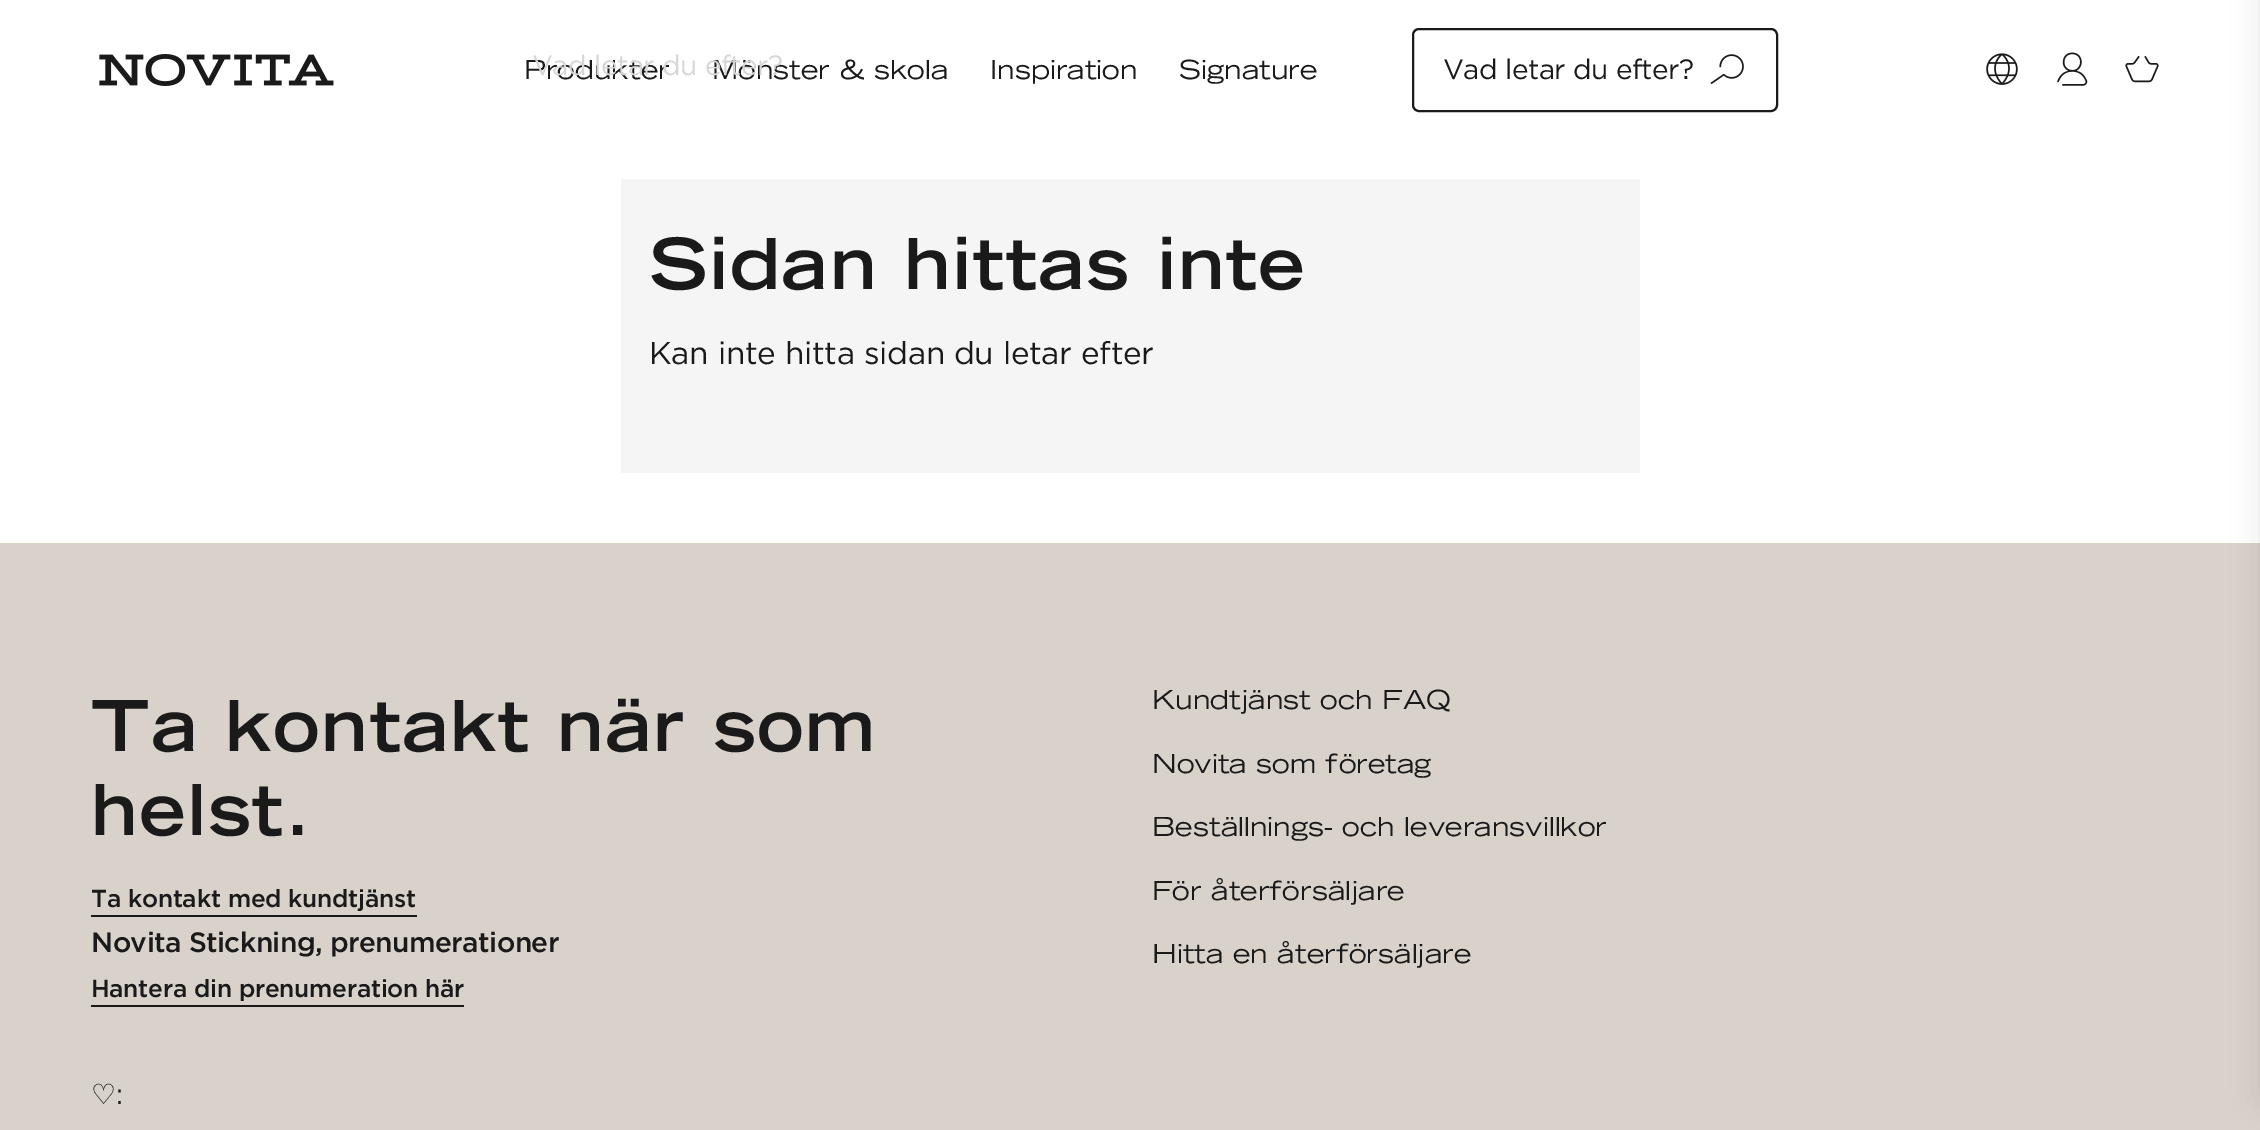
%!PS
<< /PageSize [2260 1130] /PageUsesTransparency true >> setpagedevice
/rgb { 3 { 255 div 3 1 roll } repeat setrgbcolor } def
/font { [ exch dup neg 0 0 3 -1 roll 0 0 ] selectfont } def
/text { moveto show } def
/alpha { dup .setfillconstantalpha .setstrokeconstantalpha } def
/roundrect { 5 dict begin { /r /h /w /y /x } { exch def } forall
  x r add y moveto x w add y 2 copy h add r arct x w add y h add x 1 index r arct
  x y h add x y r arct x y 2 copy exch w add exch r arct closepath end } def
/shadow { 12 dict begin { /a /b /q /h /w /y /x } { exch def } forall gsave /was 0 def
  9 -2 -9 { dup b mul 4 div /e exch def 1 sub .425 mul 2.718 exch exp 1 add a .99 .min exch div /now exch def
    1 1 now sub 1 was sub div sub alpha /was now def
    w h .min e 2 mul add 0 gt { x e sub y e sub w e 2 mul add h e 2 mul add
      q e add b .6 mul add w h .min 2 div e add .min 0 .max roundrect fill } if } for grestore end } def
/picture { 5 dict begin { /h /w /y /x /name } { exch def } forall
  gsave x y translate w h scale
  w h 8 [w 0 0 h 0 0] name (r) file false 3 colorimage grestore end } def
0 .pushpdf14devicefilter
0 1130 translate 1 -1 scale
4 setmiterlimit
255 255 255 rgb
0 0 2260 1130 rectfill
(img_01.rgb) 99 54 235 32 picture
26 26 26 rgb
2 setlinewidth
1413 29 364 82 6 roundrect stroke
(img_02.rgb) 1710 54 34 30 picture
(img_03.rgb) 1986 53 32 32 picture
(img_04.rgb) 2057 52 31 34 picture
(img_05.rgb) 2125 56 34 27 picture
216 210 203 rgb
0 543 2260 587 rectfill
0 0 0 rgb
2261 -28 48 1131 7 14 0.1 shadow
245 245 245 rgb
621 179 1019 294 rectfill
26 26 26 rgb
91 915 326 2 rectfill
91 1005 373 2 rectfill
/TradeGothic-Regular 26.25 font
(Produkter) 524 79 text
(Mönster & skola) 712 79 text
/Gotham-Regular 28 font
214 214 214 rgb
532 75 moveto -0.55 0 (Vad letar du efter?) ashow
/TradeGothic-Regular 26.25 font
26 26 26 rgb
(Inspiration) 990 79 text
(Signature) 1179 79 text
/Gotham-Regular 28 font
1443 79 moveto -0.55 0 (Vad letar du efter?) ashow
/TradeGothic-Bold 70 font
649 289 moveto 1.4 0 (Sidan hittas inte) ashow
/Gotham-Regular 31.5 font
649 364 moveto -0.3 0 (Kan inte hitta sidan du letar efter) ashow
/TradeGothic-Bold 70 font
91 751 moveto 1.4 0 (Ta kontakt när som) ashow
91 835 moveto 1.4 0 (helst.) ashow
/Gotham-Medium 24.5 font
91 907 moveto -0.25 0 (Ta kontakt med kundtjänst) ashow
/Gotham-Medium 28 font
91 952 moveto -0.55 0 (Novita Stickning, prenumerationer) ashow
/Gotham-Medium 24.5 font
91 997 moveto -0.25 0 (Hantera din prenumeration här) ashow
/DejaVuSans-Regular 28 font
91 1104 moveto -0.55 0 (♡) ashow
/Gotham-Regular 28 font
116 1104 moveto -0.55 0 (:) ashow
/TradeGothic-Regular 26.25 font
(Kundtjänst och FAQ) 1152 709 text
(Novita som företag) 1152 773 text
(Beställnings- och leveransvillkor) 1152 836 text
(För återförsäljare) 1152 900 text
(Hitta en återförsäljare) 1152 963 text
.poppdf14devicefilter showpage
